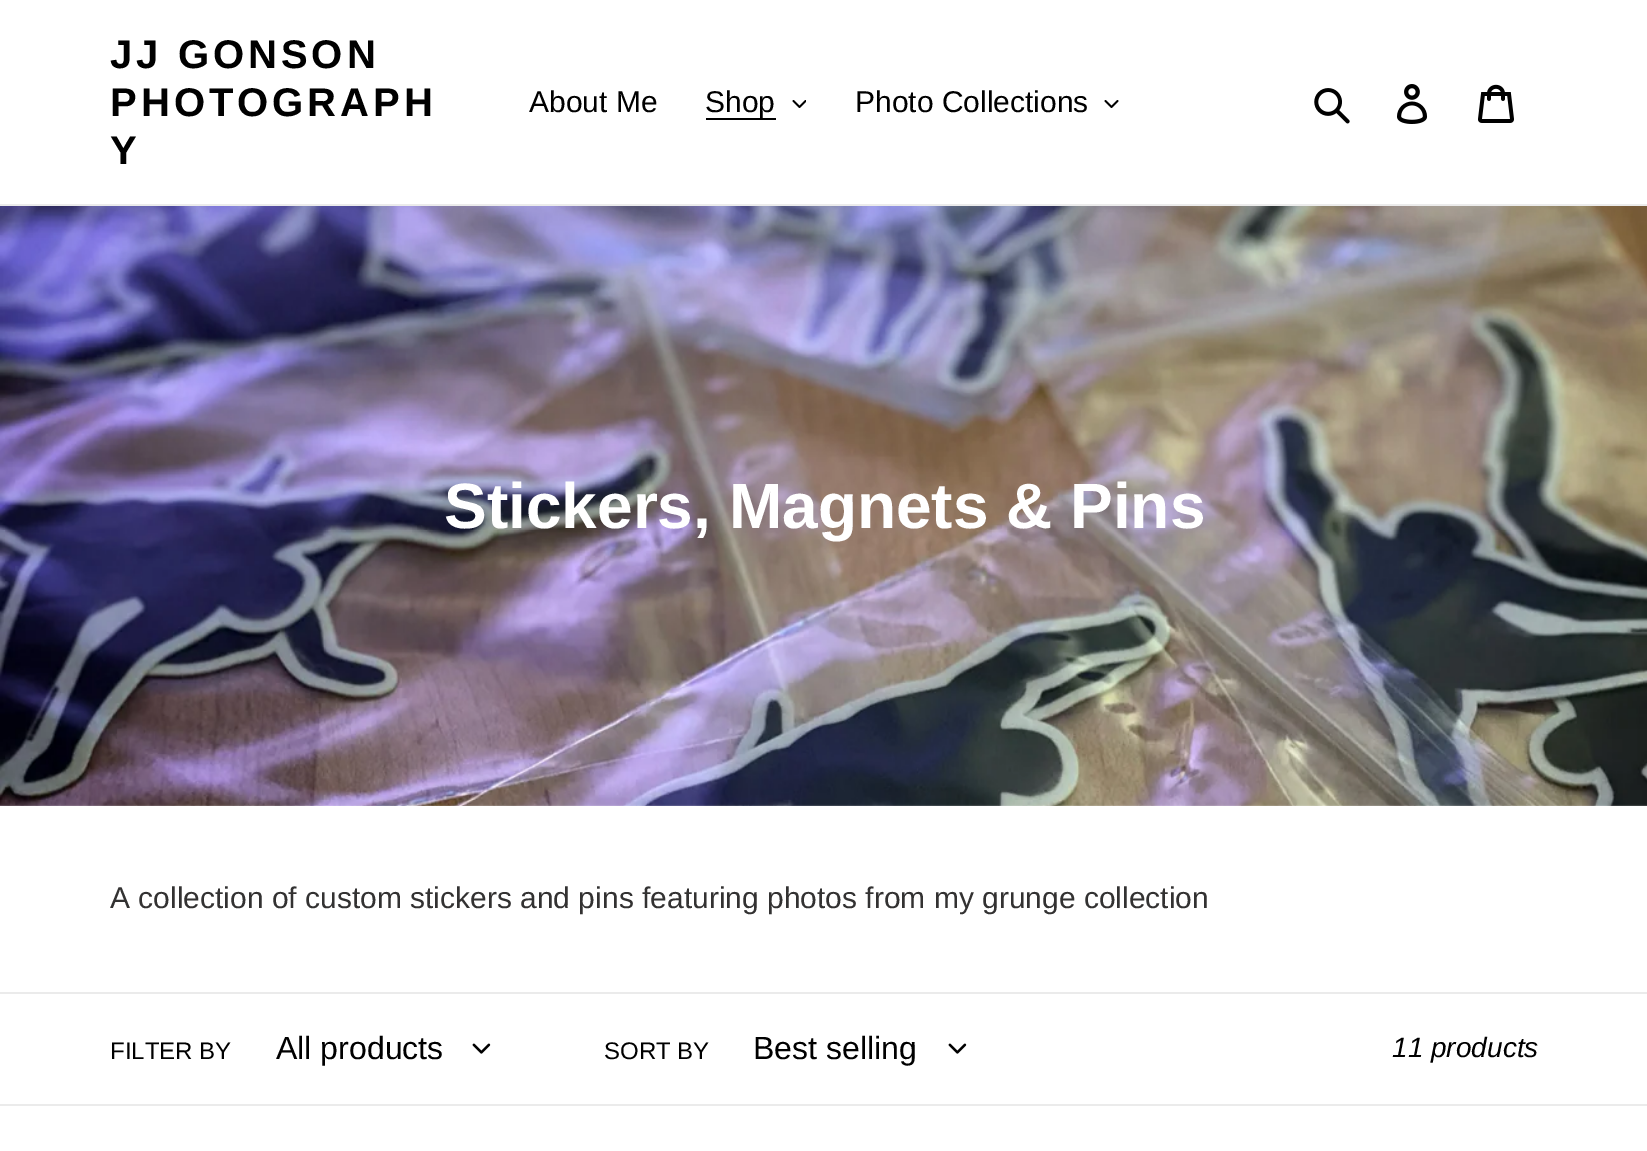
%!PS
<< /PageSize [1647 1151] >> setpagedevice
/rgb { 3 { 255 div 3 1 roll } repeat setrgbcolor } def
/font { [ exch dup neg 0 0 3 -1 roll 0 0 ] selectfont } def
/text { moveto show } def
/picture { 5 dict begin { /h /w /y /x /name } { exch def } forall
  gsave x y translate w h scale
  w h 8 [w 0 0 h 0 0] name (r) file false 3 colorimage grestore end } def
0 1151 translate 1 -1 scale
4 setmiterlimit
255 255 255 rgb
0 0 1647 1151 rectfill
235 235 235 rgb
0 204 1647 2 rectfill
0 0 0 rgb
706 118 70 2 rectfill
(img_01.rgb) 792 100 14 8 picture
(img_02.rgb) 1104 100 15 8 picture
(img_03.rgb) 1314 88 36 36 picture
(img_04.rgb) 1397 84 31 40 picture
(img_05.rgb) 1478 84 36 39 picture
(img_06.rgb) 0 206 1647 600 picture
235 235 235 rgb
0 992 1647 2 rectfill
0 1104 1647 2 rectfill
(img_07.rgb) 472 1043 19 11 picture
(img_07.rgb) 948 1043 19 11 picture
/LiberationSans-Bold 40 font
0 0 0 rgb
110 68 moveto 4 0 (JJ GONSON) ashow
110 116 moveto 4 0 (PHOTOGRAPH) ashow
110 164 moveto 4 0 (Y) ashow
/LiberationSans-Regular 30 font
(About Me) 529 112 text
(Shop) 705 112 text
(Photo Collections) 855 112 text
/LiberationSans-Bold 64 font
255 255 255 rgb
(Stickers, Magnets & Pins) 444 528 text
/LiberationSans-Regular 30 font
51 50 50 rgb
(A collection of custom stickers and pins featuring photos from my grunge collection) 110 908 text
/LiberationSans-Regular 24 font
0 0 0 rgb
(FILTER BY) 110 1059 text
/LiberationSans-Regular 32 font
(All products) 276 1059 text
/LiberationSans-Regular 24 font
(SORT BY) 604 1059 text
/LiberationSans-Regular 32 font
(Best selling) 753 1059 text
/LiberationSans-Italic 28 font
(11 products) 1392 1057 text
showpage
